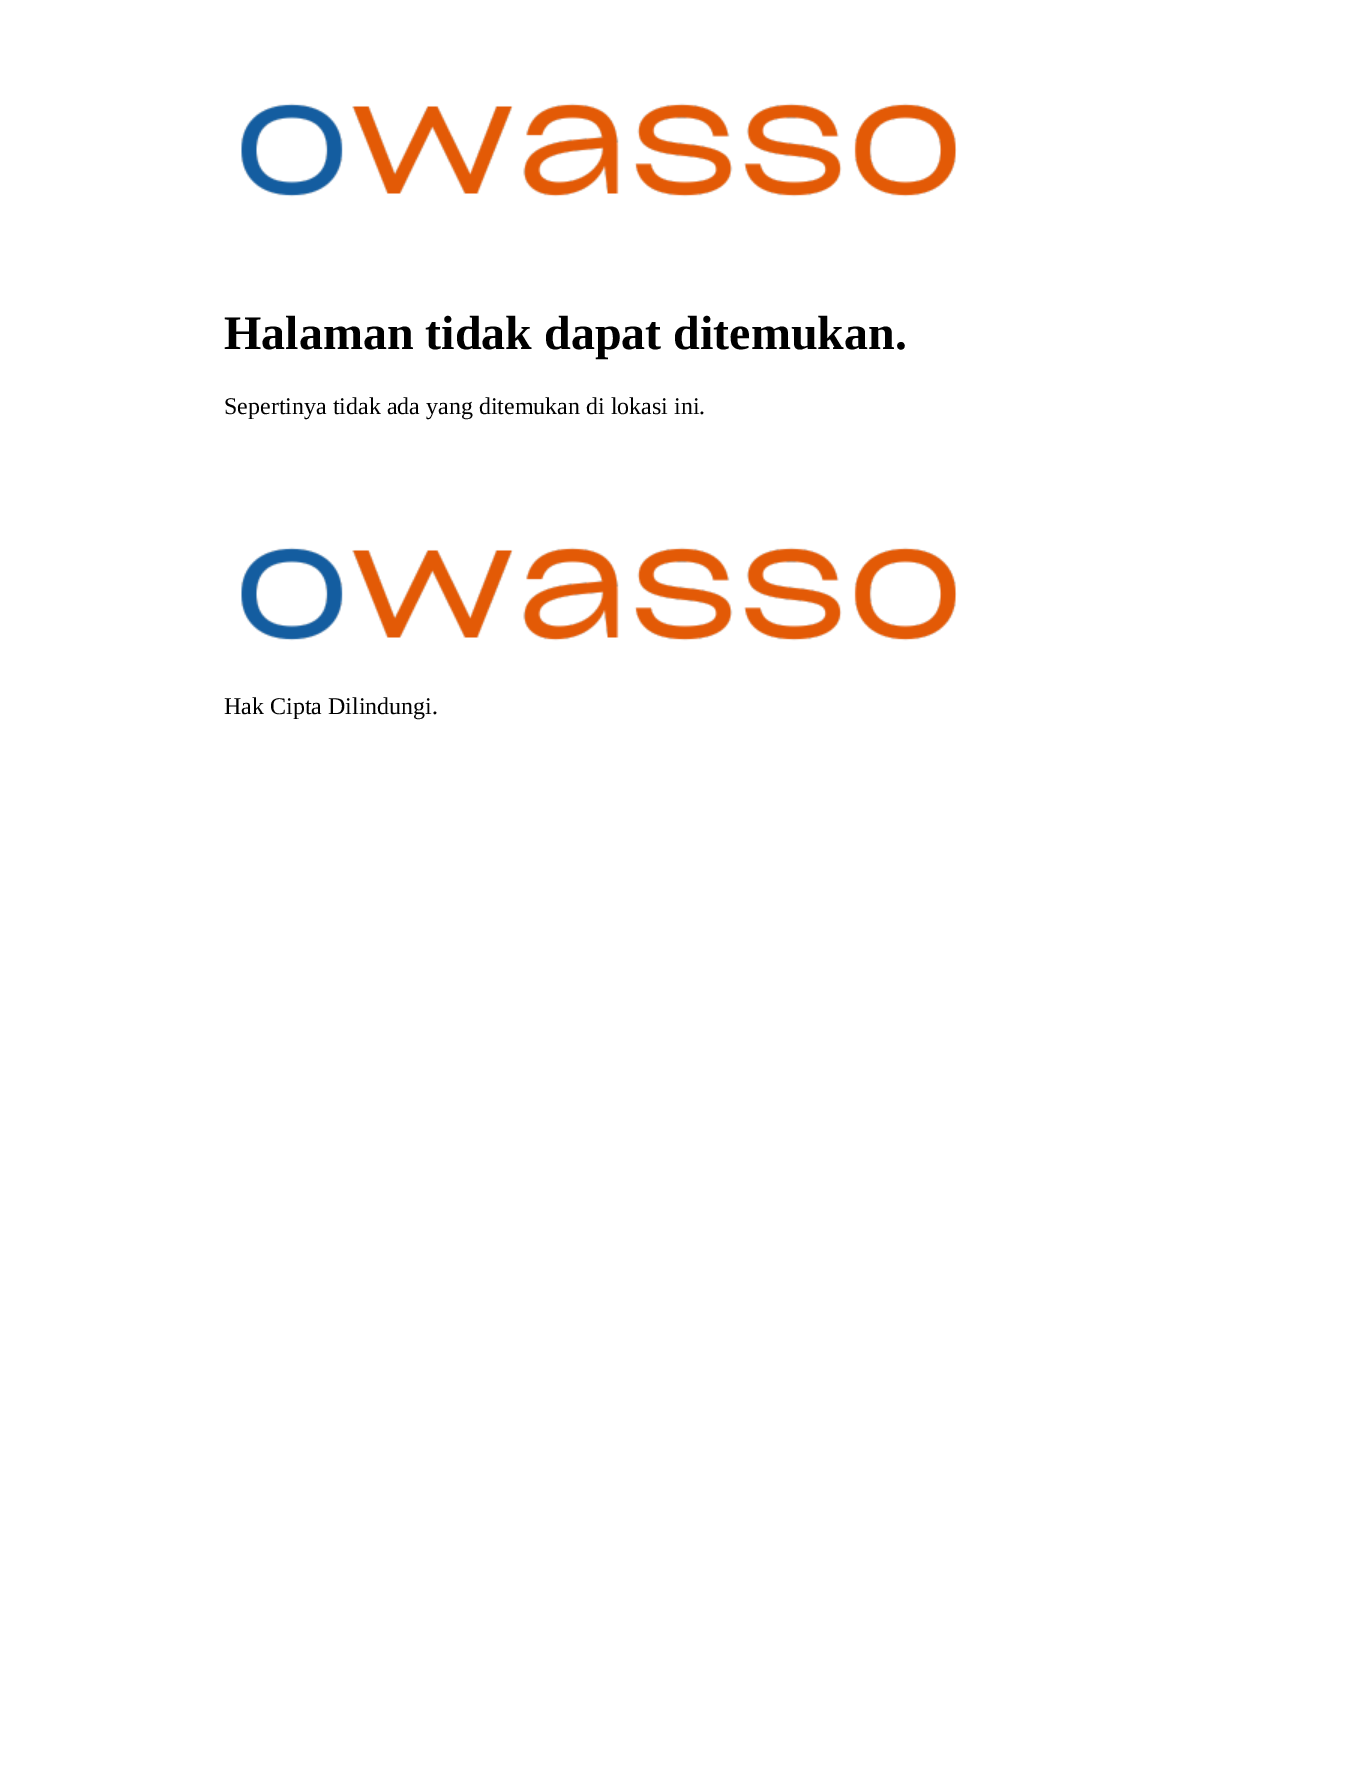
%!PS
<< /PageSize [1347 1768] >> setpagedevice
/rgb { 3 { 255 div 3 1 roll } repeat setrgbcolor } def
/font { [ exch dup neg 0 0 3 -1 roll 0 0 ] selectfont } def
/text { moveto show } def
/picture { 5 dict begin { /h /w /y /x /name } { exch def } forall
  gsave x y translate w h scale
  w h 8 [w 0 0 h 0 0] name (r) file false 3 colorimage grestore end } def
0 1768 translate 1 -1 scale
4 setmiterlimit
255 255 255 rgb
0 0 1347 1768 rectfill
(img_01.rgb) 241 103 716 94 picture
(img_01.rgb) 241 547 716 94 picture
/LiberationSerif-Bold 48 font
0 0 0 rgb
(Halaman tidak dapat ditemukan.) 224 349 text
/LiberationSerif-Regular 24 font
(Sepertinya tidak ada yang ditemukan di lokasi ini.) 224 414 text
(Hak Cipta Dilindungi.) 224 714 text
showpage
